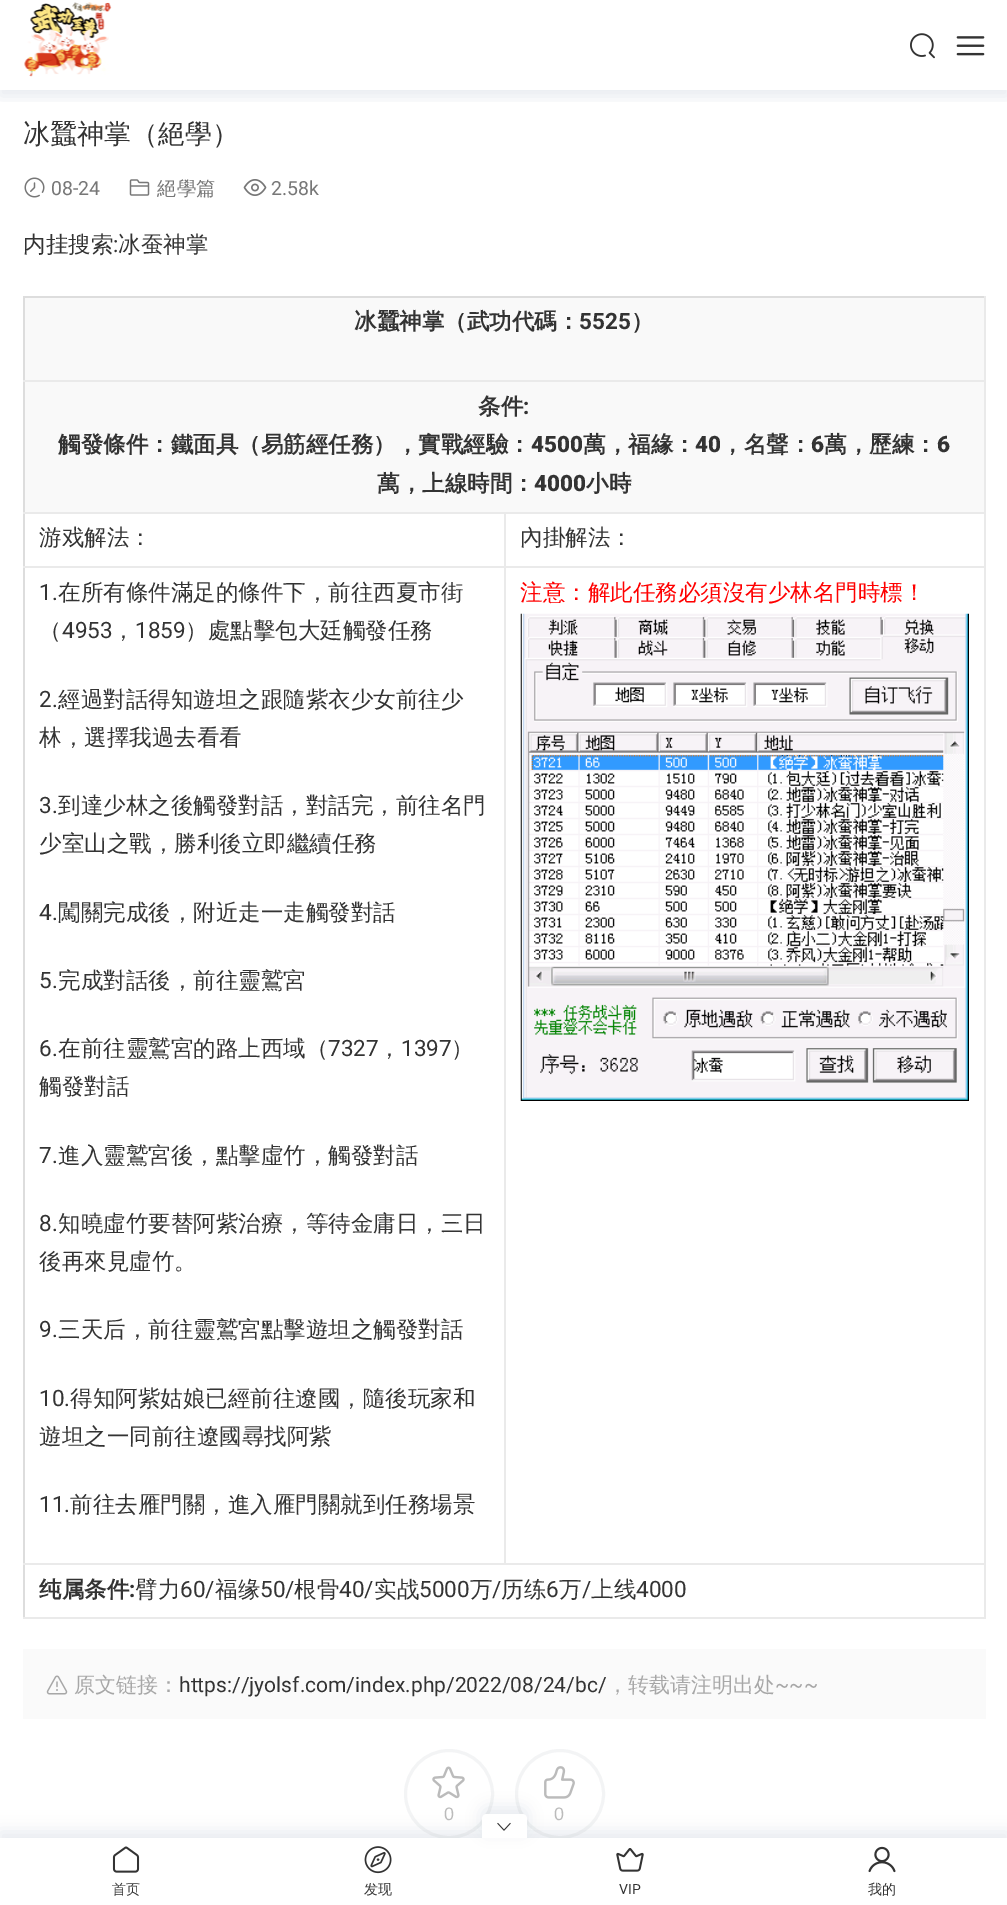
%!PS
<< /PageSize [1007 1905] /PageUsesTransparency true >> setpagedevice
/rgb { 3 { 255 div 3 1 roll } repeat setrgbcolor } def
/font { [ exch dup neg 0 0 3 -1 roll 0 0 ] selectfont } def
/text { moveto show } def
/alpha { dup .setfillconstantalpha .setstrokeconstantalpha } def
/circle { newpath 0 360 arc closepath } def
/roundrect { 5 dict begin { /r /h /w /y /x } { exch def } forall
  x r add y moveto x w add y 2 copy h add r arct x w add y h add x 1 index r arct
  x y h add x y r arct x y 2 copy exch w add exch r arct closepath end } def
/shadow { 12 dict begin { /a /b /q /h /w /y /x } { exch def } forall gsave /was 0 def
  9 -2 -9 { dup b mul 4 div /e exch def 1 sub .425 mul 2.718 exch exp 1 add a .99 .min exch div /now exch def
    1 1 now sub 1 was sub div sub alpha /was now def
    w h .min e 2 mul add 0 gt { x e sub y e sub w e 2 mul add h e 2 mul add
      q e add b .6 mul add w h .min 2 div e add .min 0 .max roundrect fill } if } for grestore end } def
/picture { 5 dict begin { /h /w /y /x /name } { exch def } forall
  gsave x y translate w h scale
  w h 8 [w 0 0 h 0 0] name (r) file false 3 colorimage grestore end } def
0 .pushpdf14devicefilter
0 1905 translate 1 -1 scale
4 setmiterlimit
255 255 255 rgb
0 0 1007 1905 rectfill
gsave
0 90 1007 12 rectclip
17 58 93 rgb
0 6 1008 90 0 7.5 0.1 shadow
grestore
(img_01.rgb) 24 2 88 75 picture
(img_02.rgb) 910 33 25 26 picture
(img_03.rgb) 956 36 29 20 picture
(img_04.rgb) 24 177 21 21 picture
(img_05.rgb) 129 179 21 17 picture
(img_06.rgb) 243 179 24 17 picture
221 221 221 rgb
23 296 963 2 rectfill
23 296 2 1323 rectfill
249 249 249 rgb
25 298 959 82 rectfill
234 234 234 rgb
984 296 2 1323 rectfill
23 380 963 2 rectfill
249 249 249 rgb
25 382 959 130 rectfill
234 234 234 rgb
504 1563 482 2 rectfill
504 566 2 999 rectfill
504 566 482 2 rectfill
504 512 2 55 rectfill
23 512 963 2 rectfill
23 566 483 2 rectfill
23 1563 483 2 rectfill
(img_07.rgb) 520 613 449 488 picture
23 1617 963 2 rectfill
250 250 250 rgb
23 1649 963 70 rectfill
(img_08.rgb) 46 1675 22 20 picture
243 244 245 rgb
3 setlinewidth
449 1794 43.5 circle stroke
(img_09.rgb) 432 1766 33 33 picture
560 1794 43.5 circle stroke
(img_10.rgb) 544 1766 31 33 picture
17 58 93 rgb
0 1832 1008 67 0 7.5 0.1 shadow
255 255 255 rgb
0 1838 1007 67 rectfill
17 58 93 rgb
482 1808 45 24 5 7.5 0.1 shadow
255 255 255 rgb
487 1814 moveto 35 0 rlineto 3 0 5 2 5 5 rcurveto 0 19 rlineto -45 0 rlineto 0 -19 rlineto 0 -3 2 -5 5 -5 rcurveto closepath fill
(img_11.rgb) 497 1822 14 9 picture
(img_12.rgb) 112 1846 28 27 picture
(img_13.rgb) 364 1846 28 28 picture
(img_14.rgb) 616 1848 28 24 picture
(img_15.rgb) 868 1846 28 27 picture
/WenQuanYiZenHei-Medium 27 font
51 51 51 rgb
(冰蠶神掌（絕學）) 23 143 text
/Roboto-Regular 19.5 font
119 119 119 rgb
(08-24) 51 195 text
/WenQuanYiZenHei-Medium 19.5 font
(絕學篇) 157 195 text
/Roboto-Regular 19.5 font
(2.58k) 271 195 text
/WenQuanYiZenHei-Medium 22.5 font
51 51 51 rgb
(内挂搜索) 23 252 text
/Roboto-Regular 22.5 font
(:) 113 252 text
/WenQuanYiZenHei-Medium 22.5 font
(冰蚕神掌) 118 252 text
/WenQuanYiZenHei-Bold 22.5 font
(冰蠶神掌（武功代碼：) 354 329 text
/Roboto-Bold 22.5 font
(5525) 579 329 text
/WenQuanYiZenHei-Bold 22.5 font
(）) 631 329 text
(条件) 478 414 text
/Roboto-Bold 22.5 font
(:) 523 414 text
/WenQuanYiZenHei-Bold 22.5 font
(觸發條件：鐵面具（易筋經任務），實戰經驗：) 58 452 text
/Roboto-Black 22.5 font
(4500) 531 452 text
/WenQuanYiZenHei-Bold 22.5 font
(萬，福緣：) 583 452 text
/Roboto-Black 22.5 font
(40) 695 452 text
/WenQuanYiZenHei-Bold 22.5 font
(，名聲：) 721 452 text
/Roboto-Black 22.5 font
(6) 811 452 text
/WenQuanYiZenHei-Bold 22.5 font
(萬，歷練：) 824 452 text
/Roboto-Black 22.5 font
(6) 937 452 text
/WenQuanYiZenHei-Bold 22.5 font
(萬，上線時間：) 377 491 text
/Roboto-Black 22.5 font
(4000) 534 491 text
/WenQuanYiZenHei-Bold 22.5 font
(小時) 586 491 text
/WenQuanYiZenHei-Medium 22.5 font
(游戏解法：) 39 545 text
(內掛解法：) 520 545 text
/Roboto-Regular 22.5 font
(1.) 39 600 text
/WenQuanYiZenHei-Medium 22.5 font
(在所有條件滿足的條件下，前往西夏市街) 58 600 text
(（) 39 638 text
/Roboto-Regular 22.5 font
(4953) 62 638 text
/WenQuanYiZenHei-Medium 22.5 font
(，) 112 638 text
/Roboto-Regular 22.5 font
(1859) 135 638 text
/WenQuanYiZenHei-Medium 22.5 font
(）處點擊包大廷觸發任務) 185 638 text
/Roboto-Regular 22.5 font
(2.) 39 707 text
/WenQuanYiZenHei-Medium 22.5 font
(經過對話得知遊坦之跟隨紫衣少女前往少) 58 707 text
(林，選擇我過去看看) 39 745 text
/Roboto-Regular 22.5 font
(3.) 39 813 text
/WenQuanYiZenHei-Medium 22.5 font
(到達少林之後觸發對話，對話完，前往名門) 58 813 text
(少室山之戰，勝利後立即繼續任務) 39 851 text
/Roboto-Regular 22.5 font
(4.) 39 920 text
/WenQuanYiZenHei-Medium 22.5 font
(闖關完成後，附近走一走觸發對話) 58 920 text
/Roboto-Regular 22.5 font
(5.) 39 988 text
/WenQuanYiZenHei-Medium 22.5 font
(完成對話後，前往靈鷲宮) 58 988 text
/Roboto-Regular 22.5 font
(6.) 39 1056 text
/WenQuanYiZenHei-Medium 22.5 font
(在前往靈鷲宮的路上西域（) 58 1056 text
/Roboto-Regular 22.5 font
(7327) 328 1056 text
/WenQuanYiZenHei-Medium 22.5 font
(，) 378 1056 text
/Roboto-Regular 22.5 font
(1397) 401 1056 text
/WenQuanYiZenHei-Medium 22.5 font
(）) 451 1056 text
(觸發對話) 39 1094 text
/Roboto-Regular 22.5 font
(7.) 39 1163 text
/WenQuanYiZenHei-Medium 22.5 font
(進入靈鷲宮後，點擊虛竹，觸發對話) 58 1163 text
/Roboto-Regular 22.5 font
(8.) 39 1231 text
/WenQuanYiZenHei-Medium 22.5 font
(知曉虛竹要替阿紫治療，等待金庸日，三日) 58 1231 text
(後再來見虛竹。) 39 1269 text
/Roboto-Regular 22.5 font
(9.) 39 1337 text
/WenQuanYiZenHei-Medium 22.5 font
(三天后，前往靈鷲宮點擊遊坦之觸發對話) 58 1337 text
/Roboto-Regular 22.5 font
(10.) 39 1406 text
/WenQuanYiZenHei-Medium 22.5 font
(得知阿紫姑娘已經前往遼國，隨後玩家和) 70 1406 text
(遊坦之一同前往遼國尋找阿紫) 39 1444 text
/Roboto-Regular 22.5 font
(11.) 39 1512 text
/WenQuanYiZenHei-Medium 22.5 font
(前往去雁門關，進入雁門關就到任務場景) 70 1512 text
255 0 0 rgb
(注意：解此任務必須沒有少林名門時標！) 520 600 text
/WenQuanYiZenHei-Bold 22.5 font
51 51 51 rgb
(纯属条件) 39 1597 text
/Roboto-Bold 22.5 font
(:) 129 1597 text
/WenQuanYiZenHei-Medium 22.5 font
(臂力) 135 1597 text
/Roboto-Regular 22.5 font
(60/) 180 1597 text
/WenQuanYiZenHei-Medium 22.5 font
(福缘) 215 1597 text
/Roboto-Regular 22.5 font
(50/) 260 1597 text
/WenQuanYiZenHei-Medium 22.5 font
(根骨) 294 1597 text
/Roboto-Regular 22.5 font
(40/) 339 1597 text
/WenQuanYiZenHei-Medium 22.5 font
(实战) 374 1597 text
/Roboto-Regular 22.5 font
(5000) 419 1597 text
/WenQuanYiZenHei-Medium 22.5 font
(万) 470 1597 text
/Roboto-Regular 22.5 font
(/) 492 1597 text
/WenQuanYiZenHei-Medium 22.5 font
(历练) 501 1597 text
/Roboto-Regular 22.5 font
(6) 546 1597 text
/WenQuanYiZenHei-Medium 22.5 font
(万) 559 1597 text
/Roboto-Regular 22.5 font
(/) 582 1597 text
/WenQuanYiZenHei-Medium 22.5 font
(上线) 591 1597 text
/Roboto-Regular 22.5 font
(4000) 636 1597 text
/WenQuanYiZenHei-Medium 21 font
167 167 167 rgb
(原文链接：) 74 1692 text
/Roboto-Regular 21 font
51 51 51 rgb
(https://jyolsf.com/index.php/2022/08/24/bc/) 179 1692 text
/WenQuanYiZenHei-Medium 21 font
167 167 167 rgb
(，转载请注明出处) 607 1692 text
/Roboto-Regular 21 font
(~~~) 775 1692 text
/LiberationSans-Regular 18 font
187 187 187 rgb
(0) 444 1820 text
(0) 554 1820 text
/WenQuanYiZenHei-Medium 14 font
51 51 51 rgb
(首页) 112 1894 text
(发现) 364 1894 text
/Roboto-Regular 14 font
(VIP) 619 1894 text
/WenQuanYiZenHei-Medium 14 font
(我的) 868 1894 text
.poppdf14devicefilter showpage
